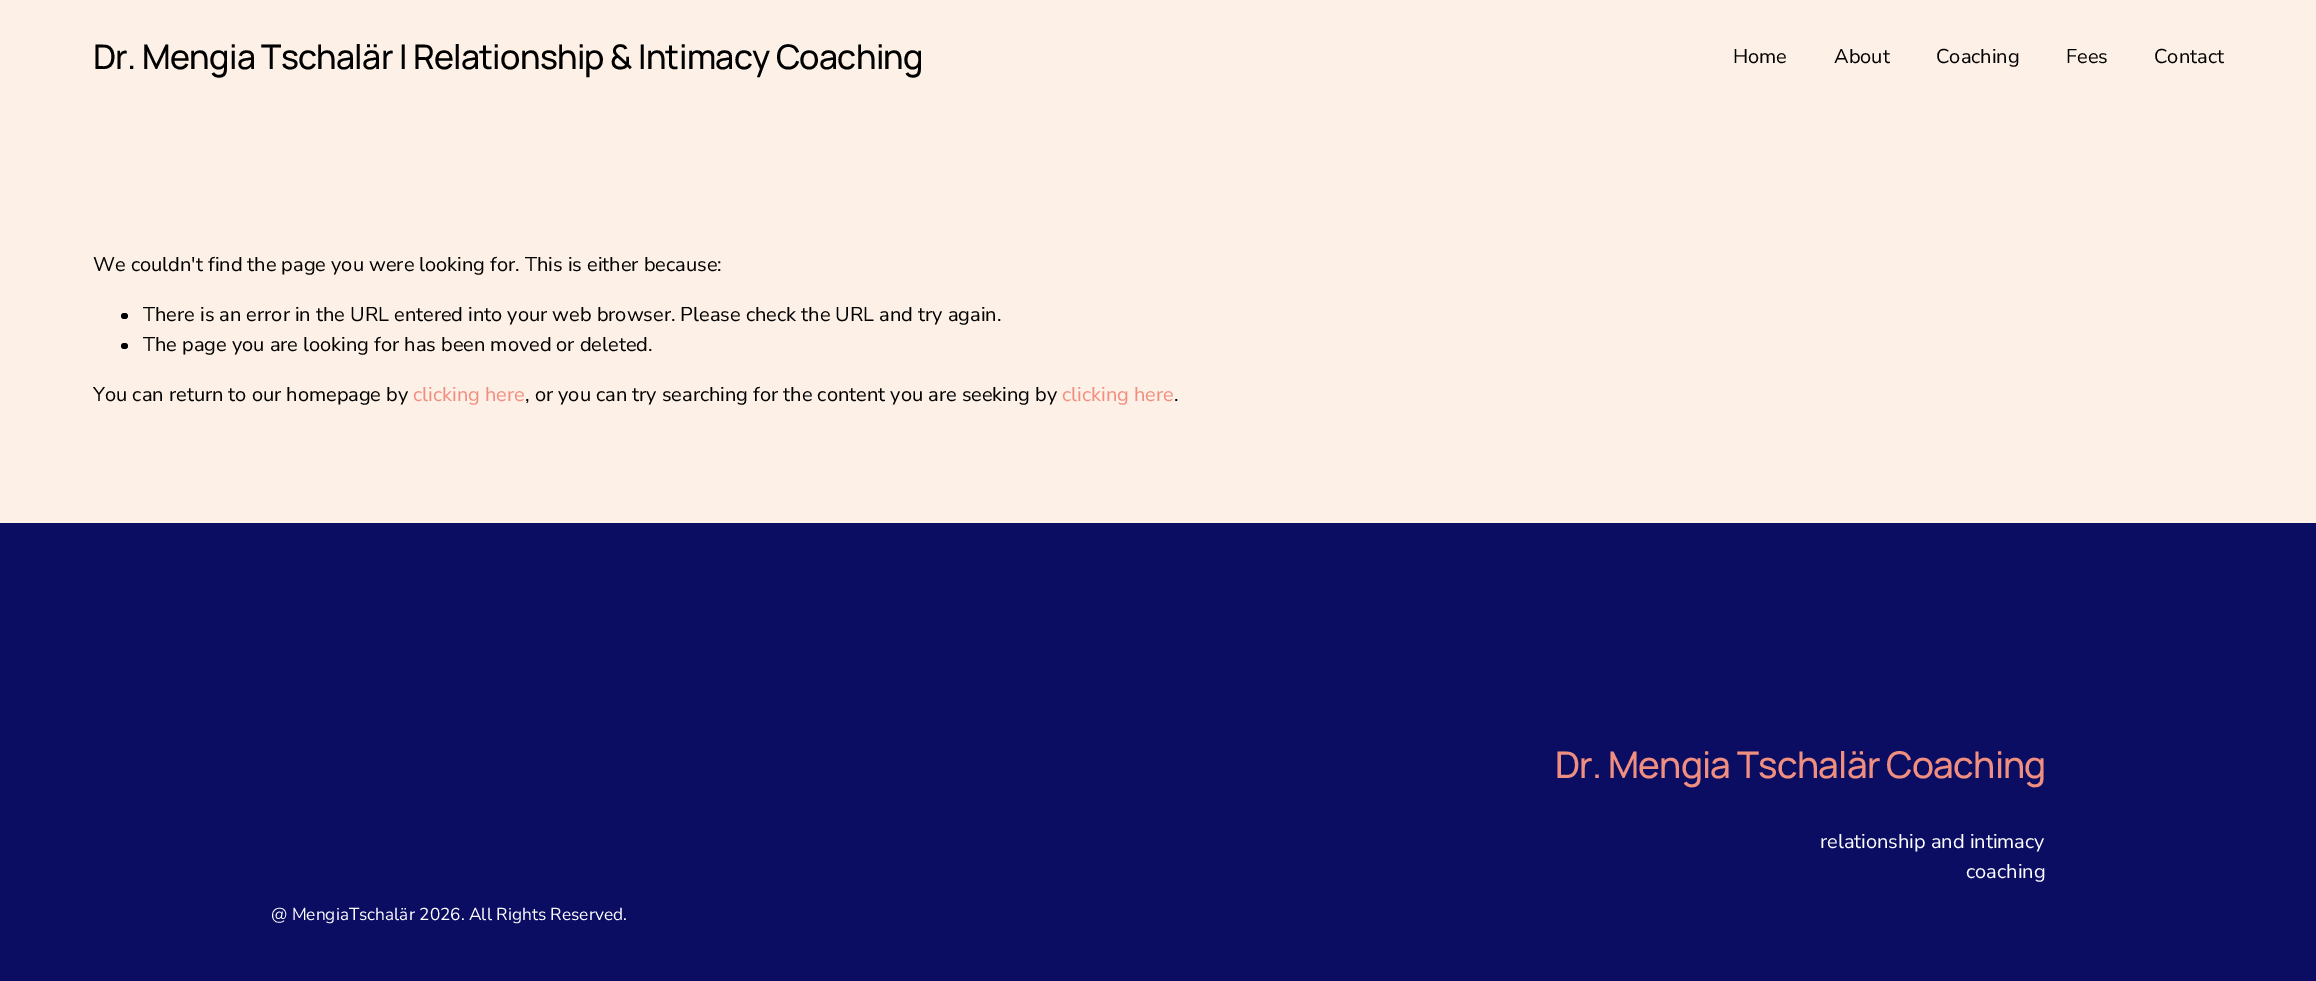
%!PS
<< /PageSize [2316 981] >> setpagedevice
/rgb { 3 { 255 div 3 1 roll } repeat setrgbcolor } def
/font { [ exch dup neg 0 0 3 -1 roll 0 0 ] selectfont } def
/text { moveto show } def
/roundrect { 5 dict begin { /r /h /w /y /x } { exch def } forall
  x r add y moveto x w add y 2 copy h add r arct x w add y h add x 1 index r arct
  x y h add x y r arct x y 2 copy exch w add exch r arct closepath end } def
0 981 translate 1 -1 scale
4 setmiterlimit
253 240 230 rgb
0 0 2316 981 rectfill
0 0 0 rgb
121 313 7 6 3 roundrect fill
121 343 7 6 3 roundrect fill
11 13 99 rgb
0 523 2316 458 rectfill
/Manrope-Medium 33.9 font
0 0 0 rgb
93 69 moveto -0.68 0 (Dr. Mengia Tschalär I Relationship & Intimacy Coaching) ashow
/NunitoSans-Regular 20 font
(Home) 1733 63 text
(About) 1834 63 text
(Coaching) 1936 63 text
(Fees) 2066 63 text
(Contact) 2154 63 text
(We couldn't find the page you were looking for. This is either because:) 93 271 text
(There is an error in the URL entered into your web browser. Please check the URL and try again.) 143 321 text
(The page you are looking for has been moved or deleted.) 143 351 text
(You can return to our homepage by) 93 401 text
240 142 128 rgb
(clicking here) 413 401 text
0 0 0 rgb
(, or you can try searching for the content you are seeking by) 525 401 text
240 142 128 rgb
(clicking here) 1062 401 text
0 0 0 rgb
(.) 1174 401 text
/Manrope-Medium 36.75 font
240 142 128 rgb
1555 778 moveto -0.75 0 (Dr. Mengia Tschalär Coaching) ashow
/NunitoSans-Regular 20 font
255 255 255 rgb
(relationship and intimacy) 1820 848 text
(coaching) 1966 878 text
/NunitoSans-Regular 17.25 font
(@ MengiaTschalär 2026. All Rights Reserved.) 271 920 text
showpage
